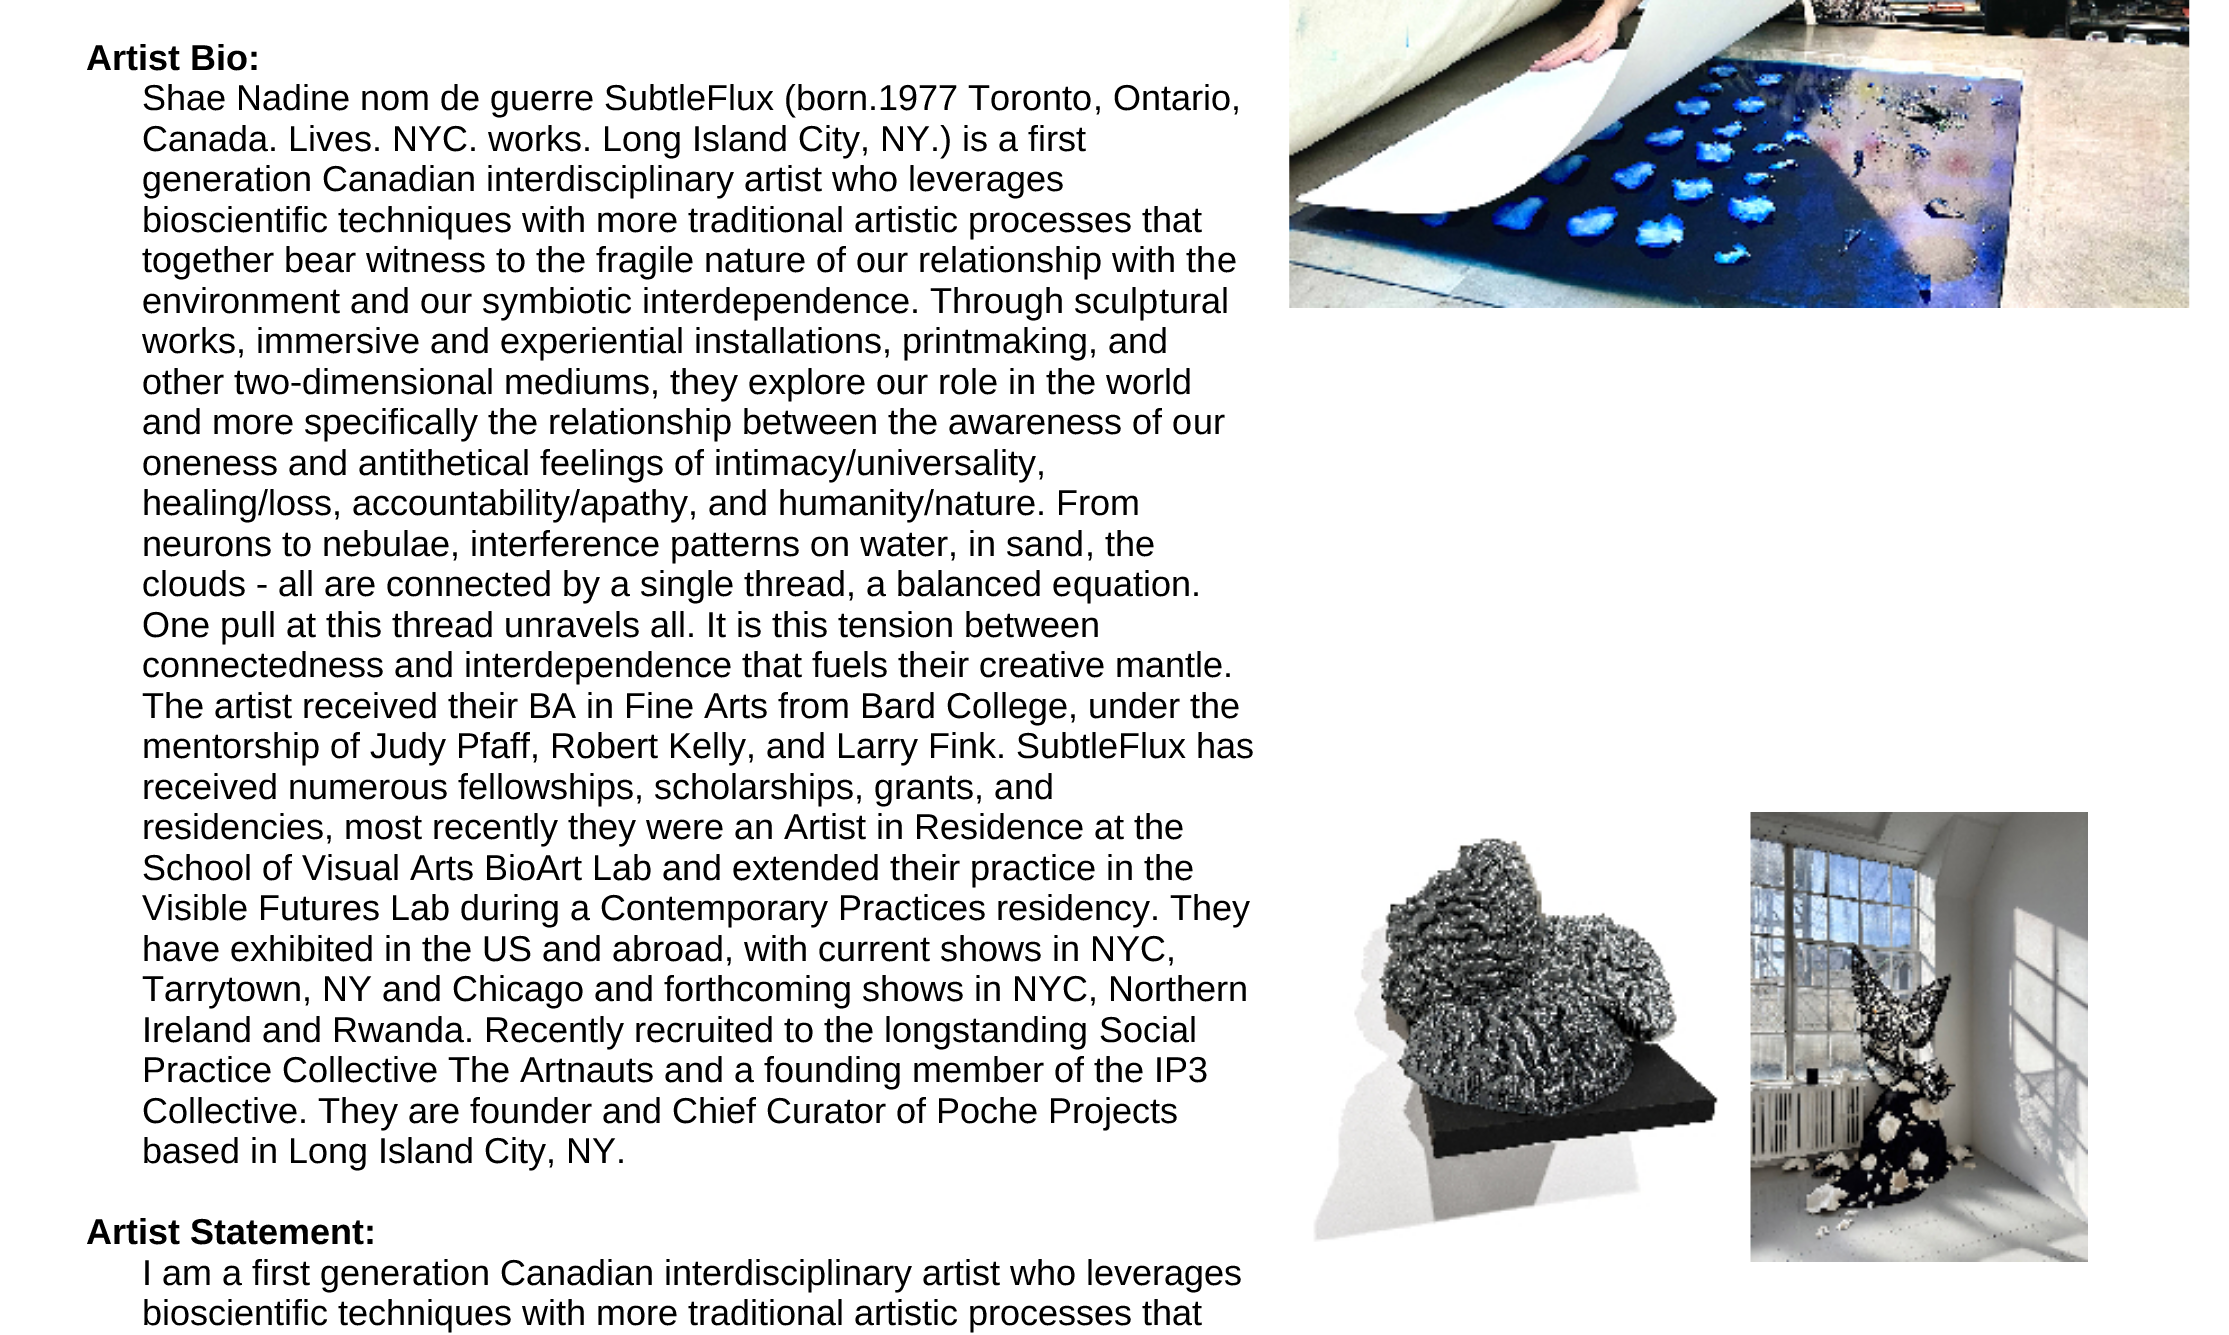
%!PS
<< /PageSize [2229 1335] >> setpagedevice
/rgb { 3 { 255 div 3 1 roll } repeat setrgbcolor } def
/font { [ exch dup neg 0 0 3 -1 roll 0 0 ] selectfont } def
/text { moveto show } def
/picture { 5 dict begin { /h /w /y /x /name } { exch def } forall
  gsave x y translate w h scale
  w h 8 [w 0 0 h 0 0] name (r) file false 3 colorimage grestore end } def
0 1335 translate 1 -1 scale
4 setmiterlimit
255 255 255 rgb
0 0 2229 1335 rectfill
(img_01.rgb) 1289 0 901 308 picture
(img_02.rgb) 1313 838 405 404 picture
(img_03.rgb) 1750 812 338 450 picture
/LiberationSans-Bold 36 font
0 0 0 rgb
(Artist Bio:) 86 70 text
/LiberationSans-Regular 36 font
(Shae Nadine nom de guerre SubtleFlux \(born.1977 Toronto, Ontario,) 142 110 text
(Canada. Lives. NYC. works. Long Island City, NY.\) is a first) 142 151 text
(generation Canadian interdisciplinary artist who leverages) 142 191 text
(bioscientific techniques with more traditional artistic processes that) 142 232 text
(together bear witness to the fragile nature of our relationship with the) 142 272 text
(environment and our symbiotic interdependence. Through sculptural) 142 313 text
(works, immersive and experiential installations, printmaking, and) 142 353 text
(other two-dimensional mediums, they explore our role in the world) 142 394 text
(and more specifically the relationship between the awareness of our) 142 434 text
(oneness and antithetical feelings of intimacy/universality,) 142 475 text
(healing/loss, accountability/apathy, and humanity/nature. From) 142 515 text
(neurons to nebulae, interference patterns on water, in sand, the) 142 556 text
(clouds - all are connected by a single thread, a balanced equation.) 142 596 text
(One pull at this thread unravels all. It is this tension between) 142 637 text
(connectedness and interdependence that fuels their creative mantle.) 142 677 text
(The artist received their BA in Fine Arts from Bard College, under the) 142 718 text
(mentorship of Judy Pfaff, Robert Kelly, and Larry Fink. SubtleFlux has) 142 758 text
(received numerous fellowships, scholarships, grants, and) 142 799 text
(residencies, most recently they were an Artist in Residence at the) 142 839 text
(School of Visual Arts BioArt Lab and extended their practice in the) 142 880 text
(Visible Futures Lab during a Contemporary Practices residency. They) 142 920 text
(have exhibited in the US and abroad, with current shows in NYC,) 142 961 text
(Tarrytown, NY and Chicago and forthcoming shows in NYC, Northern) 142 1001 text
(Ireland and Rwanda. Recently recruited to the longstanding Social) 142 1042 text
(Practice Collective The Artnauts and a founding member of the IP3) 142 1082 text
(Collective. They are founder and Chief Curator of Poche Projects) 142 1123 text
(based in Long Island City, NY.) 142 1163 text
/LiberationSans-Bold 36 font
(Artist Statement:) 86 1244 text
/LiberationSans-Regular 36 font
(I am a first generation Canadian interdisciplinary artist who leverages) 142 1285 text
(bioscientific techniques with more traditional artistic processes that) 142 1325 text
showpage
